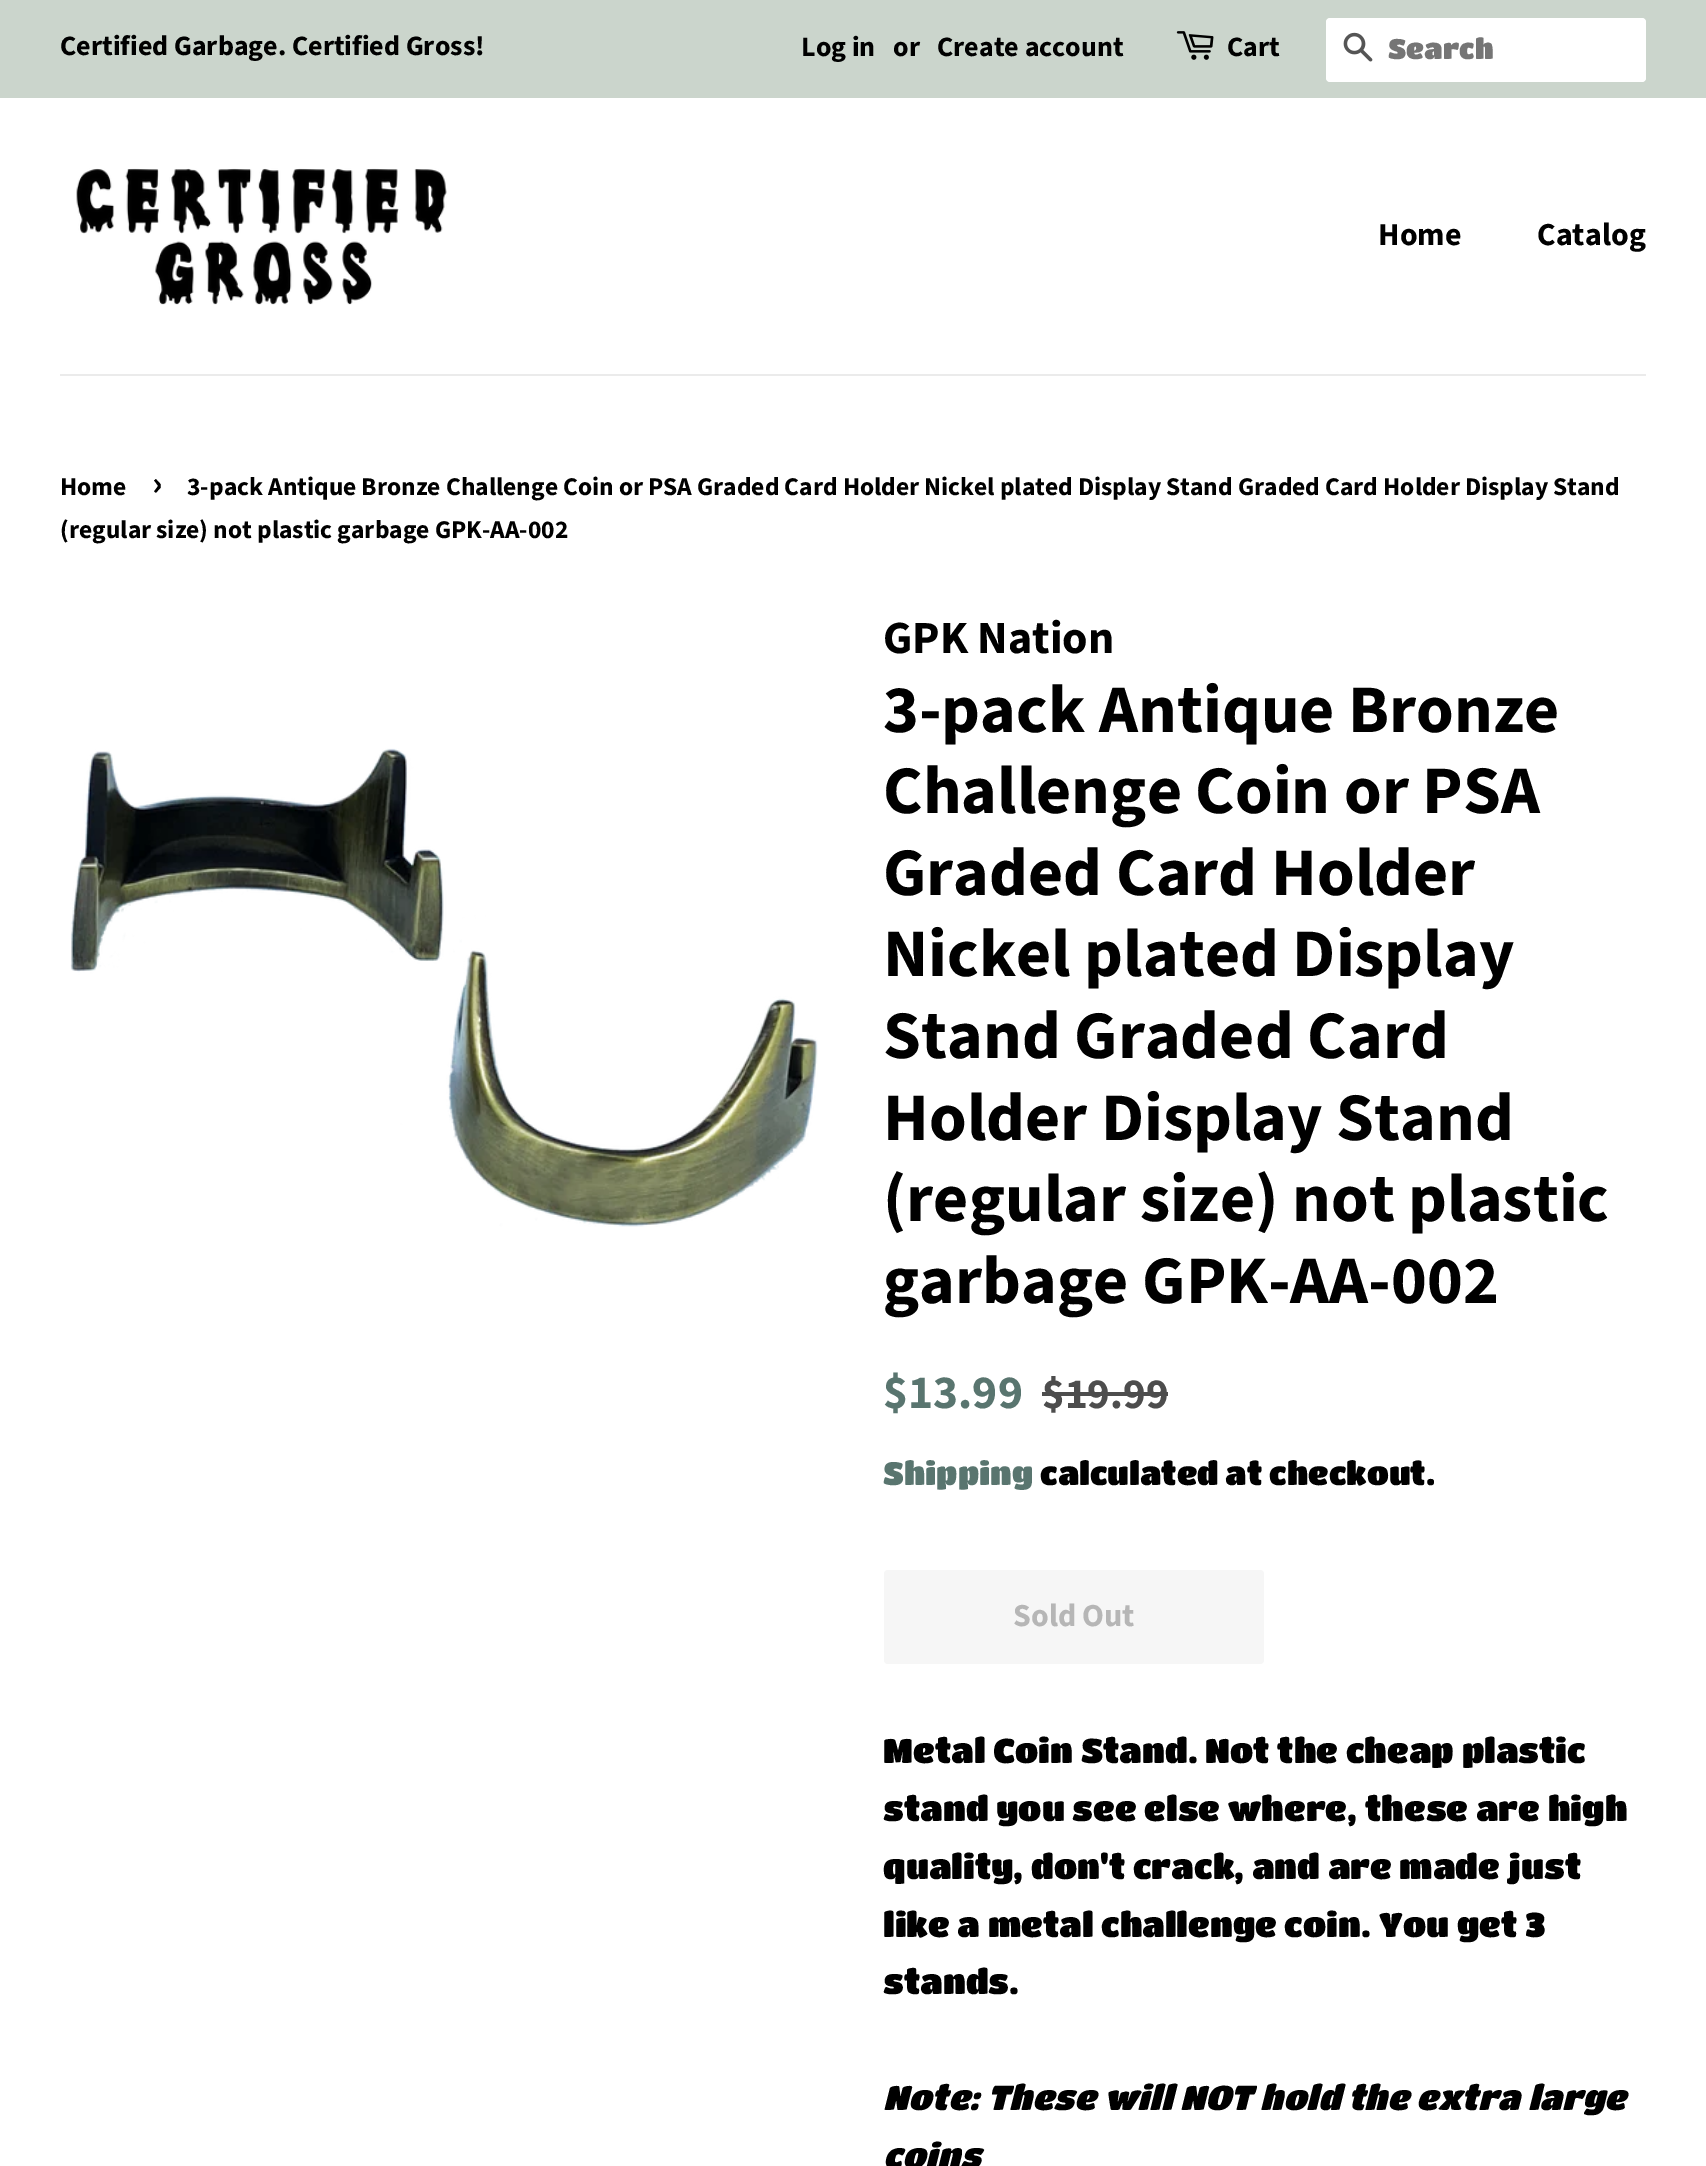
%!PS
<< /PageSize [1706 2166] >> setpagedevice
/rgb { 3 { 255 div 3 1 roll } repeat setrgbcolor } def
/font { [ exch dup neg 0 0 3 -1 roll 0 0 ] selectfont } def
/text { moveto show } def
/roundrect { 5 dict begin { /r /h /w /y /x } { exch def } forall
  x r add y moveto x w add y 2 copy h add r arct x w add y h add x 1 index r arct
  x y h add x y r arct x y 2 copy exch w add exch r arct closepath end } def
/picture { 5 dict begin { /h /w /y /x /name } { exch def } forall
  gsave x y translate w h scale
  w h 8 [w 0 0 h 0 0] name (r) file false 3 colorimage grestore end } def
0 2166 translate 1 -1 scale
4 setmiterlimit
255 255 255 rgb
0 0 1706 2166 rectfill
203 213 204 rgb
0 0 1706 98 rectfill
(img_01.rgb) 1176 31 38 29 picture
255 255 255 rgb
1326 18 320 64 4 roundrect fill
(img_02.rgb) 1343 32 30 30 picture
235 235 235 rgb
60 374 1586 2 rectfill
(img_03.rgb) 76 168 371 137 picture
(img_04.rgb) 70 748 748 479 picture
77 77 77 rgb
1042 1392 126 4 rectfill
246 246 246 rgb
884 1570 380 94 4 roundrect fill
/SourceSansPro-Bold 28 font
0 0 0 rgb
(Certified Garbage. Certified Gross!) 60 55 text
(Log in) 801 56 text
(or) 893 56 text
(Create account) 937 56 text
(Cart) 1227 56 text
/TitanOne-Regular 28 font
117 117 117 rgb
(Search) 1388 59 text
/SourceSansPro-Bold 32 font
0 0 0 rgb
(Home) 1378 245 text
(Catalog) 1537 245 text
/SourceSansPro-Bold 25.5 font
(Home) 60 495 text
/SourceSansPro-Bold 36 font
(›) 152 495 text
/SourceSansPro-Bold 25.5 font
(3-pack Antique Bronze Challenge Coin or PSA Graded Card Holder Nickel plated Display Stand Graded Card Holder Display Stand) 187 495 text
(\(regular size\) not plastic garbage GPK-AA-002) 60 538 text
/SourceSansPro-Bold 46 font
(GPK Nation) 883 653 text
/SourceSansPro-Bold 68 font
(3-pack Antique Bronze) 883 732 text
(Challenge Coin or PSA) 883 813 text
(Graded Card Holder) 883 895 text
(Nickel plated Display) 883 976 text
(Stand Graded Card) 883 1058 text
(Holder Display Stand) 883 1140 text
(\(regular size\) not plastic) 883 1221 text
(garbage GPK-AA-002) 883 1303 text
/SourceSansPro-Bold 47.5 font
89 117 111 rgb
($13.99) 883 1408 text
/SourceSansPro-Bold 43 font
77 77 77 rgb
($19.99) 1042 1408 text
/TitanOne-Regular 32 font
89 117 111 rgb
(Shipping) 883 1485 text
0 0 0 rgb
(calculated at checkout.) 1040 1485 text
/SourceSansPro-Bold 32 font
182 182 182 rgb
(Sold Out) 1013 1626 text
/TitanOne-Regular 34 font
0 0 0 rgb
(Metal Coin Stand. Not the cheap plastic) 883 1763 text
(stand you see else where, these are high) 883 1821 text
(quality, don't crack, and are made just) 883 1879 text
(like a metal challenge coin. You get 3) 883 1937 text
(stands.) 883 1994 text
/TitanOne-Italic 34 font
(Note: These will NOT hold the extra large) 883 2110 text
(coins) 883 2168 text
showpage
